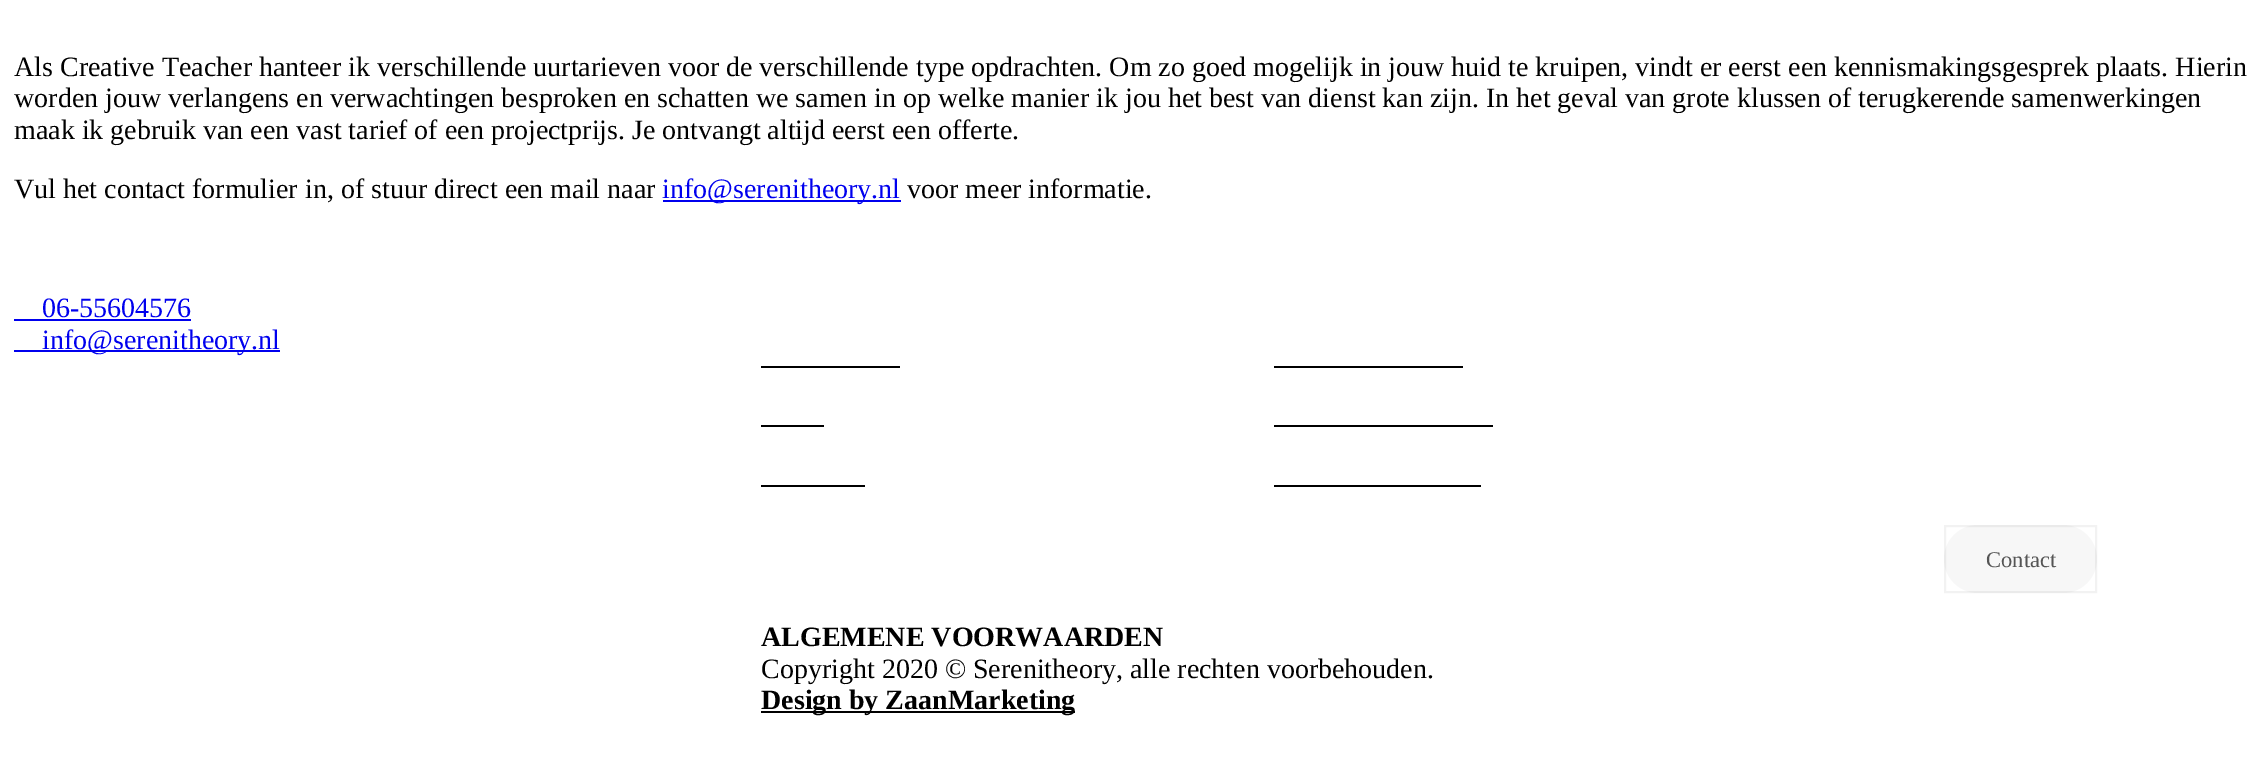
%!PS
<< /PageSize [2267 757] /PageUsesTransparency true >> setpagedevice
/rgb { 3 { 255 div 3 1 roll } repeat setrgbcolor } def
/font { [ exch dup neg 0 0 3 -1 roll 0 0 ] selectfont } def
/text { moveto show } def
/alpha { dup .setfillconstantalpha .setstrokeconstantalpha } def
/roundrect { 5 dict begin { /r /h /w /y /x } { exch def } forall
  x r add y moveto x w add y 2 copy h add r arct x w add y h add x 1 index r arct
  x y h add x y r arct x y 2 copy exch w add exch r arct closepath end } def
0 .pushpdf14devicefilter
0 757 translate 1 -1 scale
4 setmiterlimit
255 255 255 rgb
0 0 2267 757 rectfill
0 0 238 rgb
663 200 238 2 rectfill
14 319 177 2 rectfill
14 350 266 2 rectfill
0 0 0 rgb
761 366 139 2 rectfill
761 425 63 2 rectfill
761 485 104 2 rectfill
1274 366 189 2 rectfill
1274 425 219 2 rectfill
1274 485 207 2 rectfill
247 247 247 rgb
1944 525 153 68 34 roundrect fill
0.05 alpha
0 0 0 rgb
2 setlinewidth
1945 526 151 66 rectstroke
1 alpha
761 711 314 2 rectfill
/LiberationSerif-Regular 28 font
(Als Creative Teacher hanteer ik verschillende uurtarieven voor de verschillende type opdrachten. Om zo goed mogelijk in jouw huid te kruipen, vindt er eerst een kennismakingsgesprek plaats. Hierin) 14 76 text
(worden jouw verlangens en verwachtingen besproken en schatten we samen in op welke manier ik jou het best van dienst kan zijn. In het geval van grote klussen of terugkerende samenwerkingen) 14 107 text
(maak ik gebruik van een vast tarief of een projectprijs. Je ontvangt altijd eerst een offerte.) 14 139 text
(Vul het contact formulier in, of stuur direct een mail naar) 14 198 text
0 0 238 rgb
(info@serenitheory.nl) 662 198 text
0 0 0 rgb
(voor meer informatie.) 907 198 text
0 0 238 rgb
(06-55604576) 42 317 text
(info@serenitheory.nl) 42 349 text
/LiberationSerif-Regular 22.5 font
85 85 85 rgb
(Contact) 1986 567 text
/LiberationSerif-Bold 28 font
0 0 0 rgb
(ALGEMENE VOORWAARDEN) 761 646 text
/LiberationSerif-Regular 28 font
(Copyright 2020 © Serenitheory, alle rechten voorbehouden.) 761 678 text
/LiberationSerif-Bold 28 font
(Design by ZaanMarketing) 761 709 text
.poppdf14devicefilter showpage
